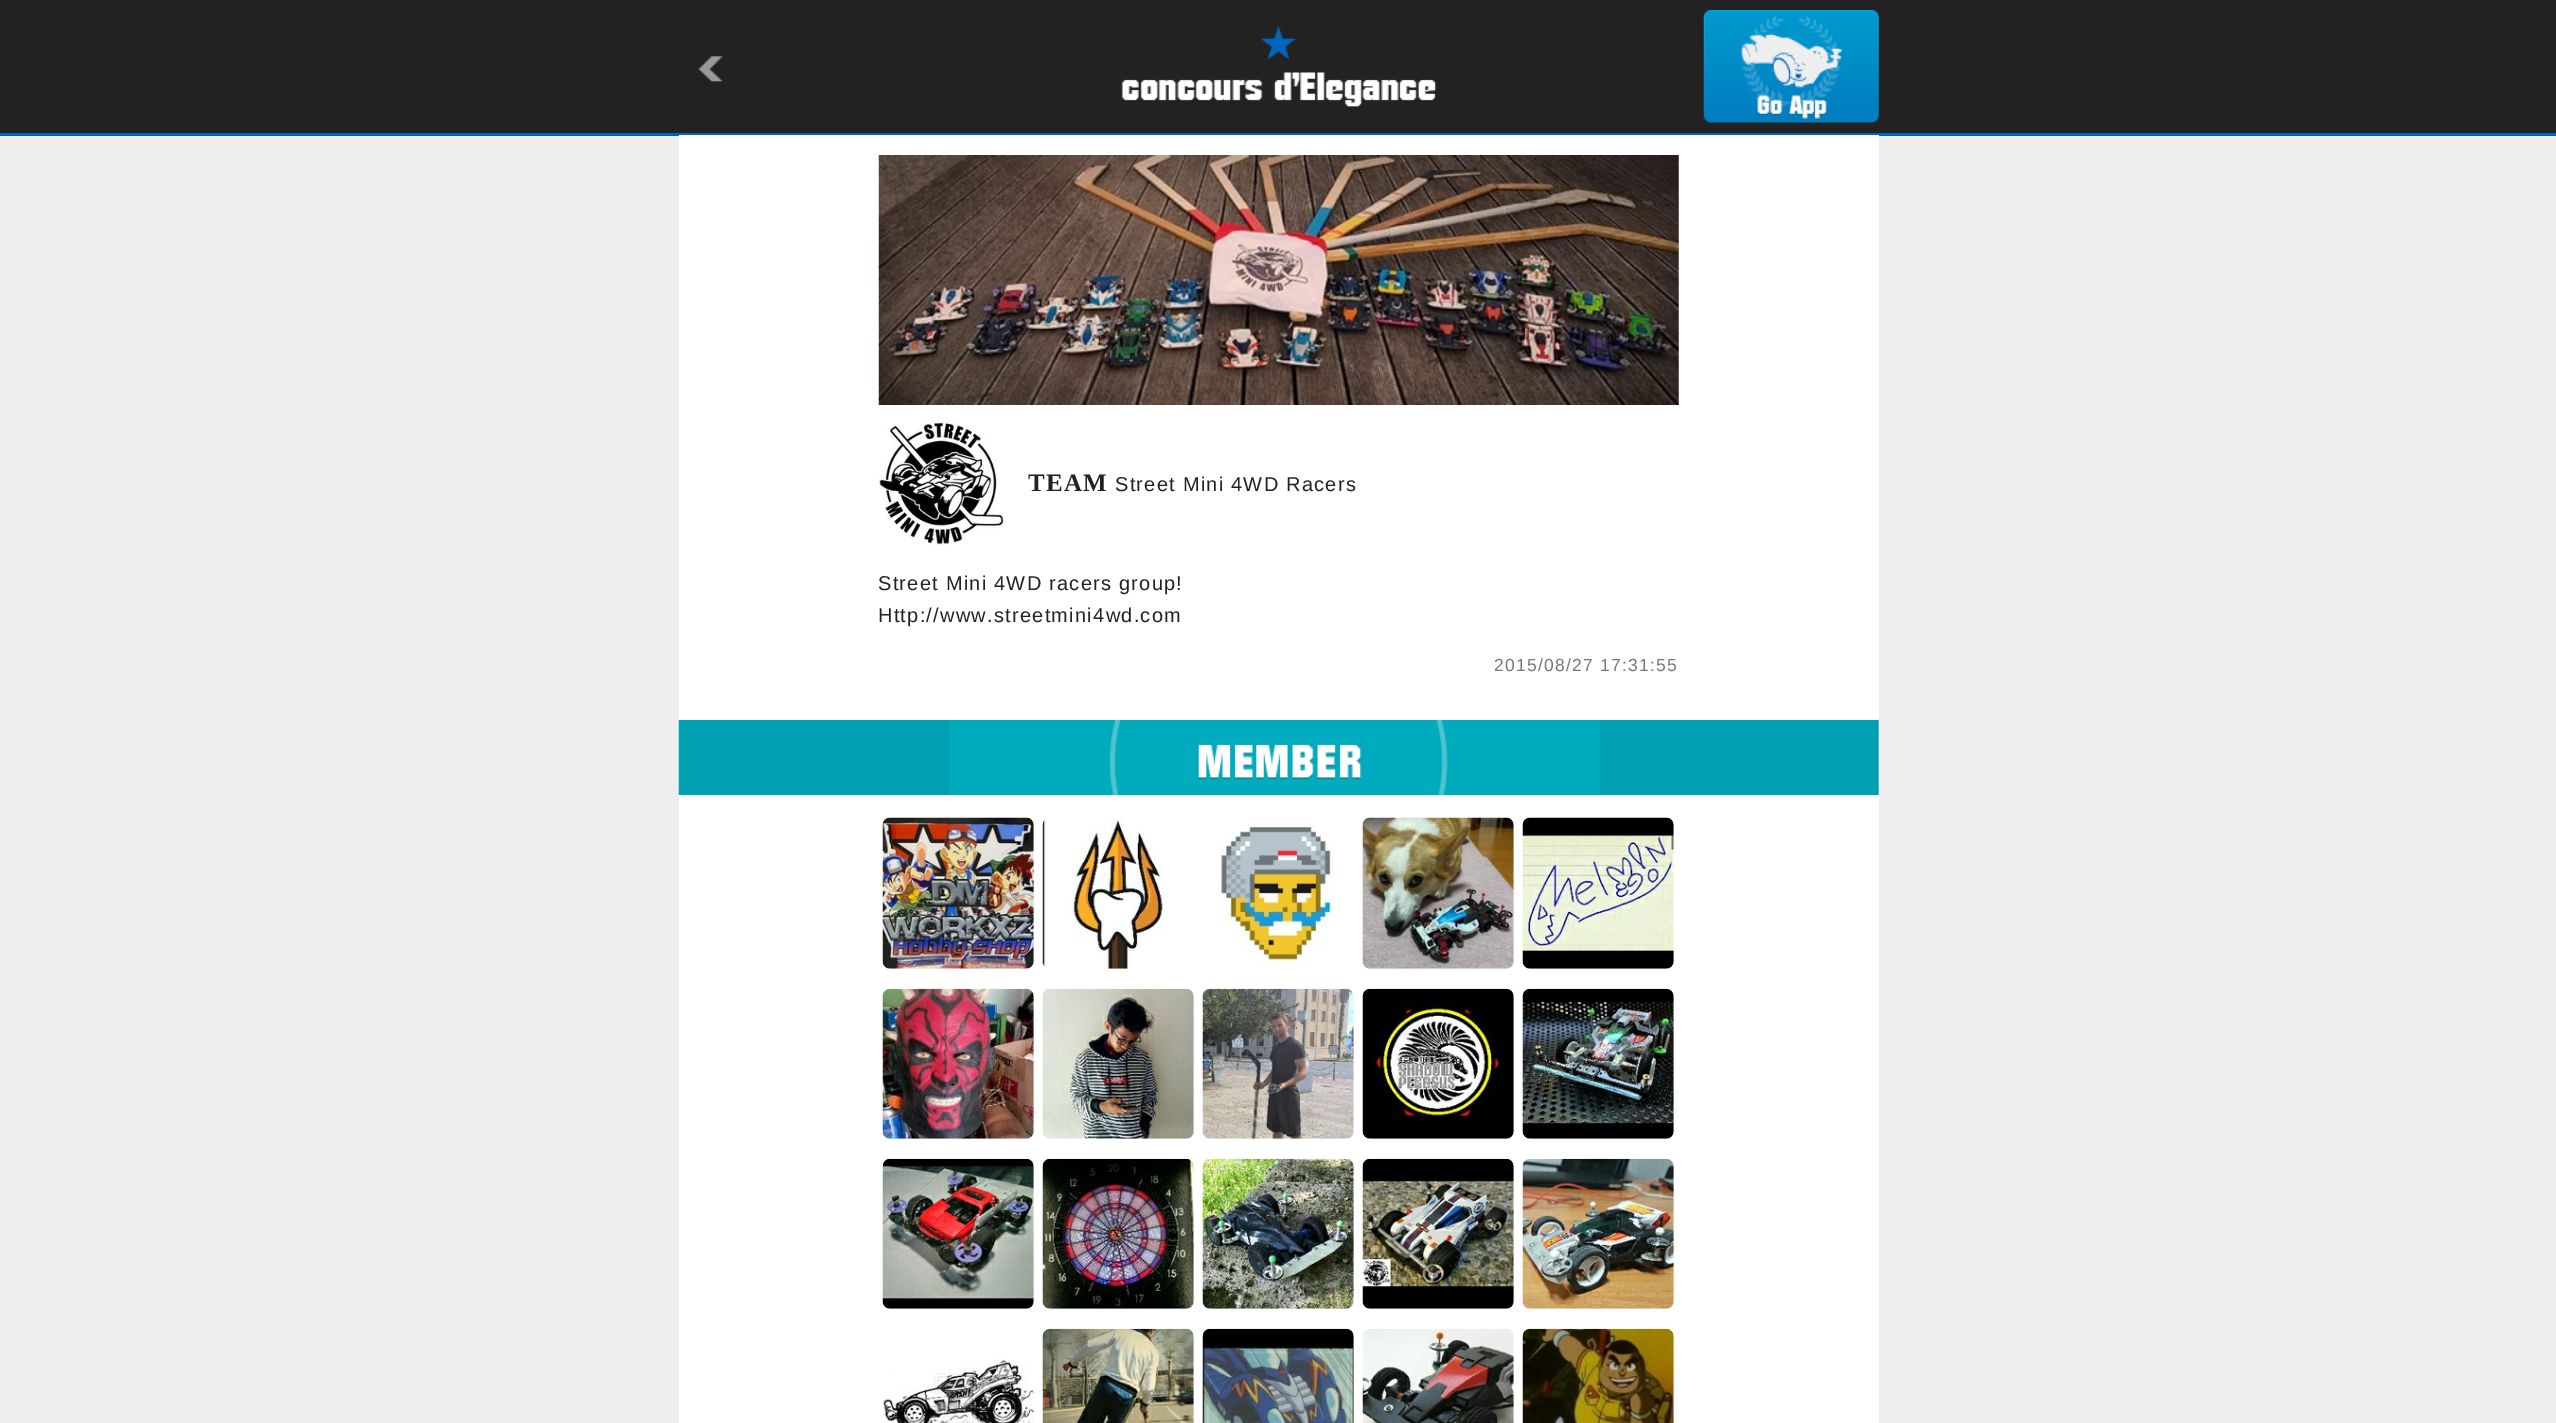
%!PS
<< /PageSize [2556 1423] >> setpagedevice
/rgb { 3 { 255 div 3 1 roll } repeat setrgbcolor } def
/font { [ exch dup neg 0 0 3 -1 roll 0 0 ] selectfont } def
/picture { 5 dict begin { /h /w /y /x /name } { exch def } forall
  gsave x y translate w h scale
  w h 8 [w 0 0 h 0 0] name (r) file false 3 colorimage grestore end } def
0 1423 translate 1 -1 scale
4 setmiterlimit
238 238 238 rgb
0 0 2556 1423 rectfill
34 34 34 rgb
0 0 2556 133 rectfill
0 102 189 rgb
0 133 2556 3 rectfill
(img_01.rgb) 698 56 25 26 picture
(img_02.rgb) 1121 26 316 81 picture
(img_03.rgb) 1703 10 176 113 picture
255 255 255 rgb
679 135 1200 1288 rectfill
(img_04.rgb) 878 155 801 250 picture
(img_05.rgb) 879 420 125 125 picture
(img_06.rgb) 678 720 1201 75 picture
(img_07.rgb) 882 817 152 152 picture
(img_08.rgb) 1042 818 122 151 picture
(img_09.rgb) 1218 825 121 143 picture
(img_10.rgb) 1362 817 152 152 picture
(img_11.rgb) 1522 817 152 152 picture
(img_12.rgb) 882 988 152 151 picture
(img_13.rgb) 1042 988 152 151 picture
(img_14.rgb) 1202 988 152 151 picture
(img_15.rgb) 1362 988 152 151 picture
(img_16.rgb) 1522 988 152 151 picture
(img_17.rgb) 882 1158 152 151 picture
(img_18.rgb) 1042 1158 152 151 picture
(img_19.rgb) 1202 1158 152 151 picture
(img_20.rgb) 1362 1158 152 151 picture
(img_21.rgb) 1522 1158 152 151 picture
(img_22.rgb) 883 1359 151 64 picture
(img_23.rgb) 1042 1328 152 95 picture
(img_24.rgb) 1202 1328 152 95 picture
(img_25.rgb) 1362 1329 152 94 picture
(img_26.rgb) 1522 1328 152 95 picture
/LiberationSerif-Bold 25 font
34 34 34 rgb
1028 491 moveto 1.25 0 (TEAM) ashow
/LiberationSans-Regular 20 font
1115 491 moveto 1.25 0 (Street Mini 4WD Racers) ashow
878 590 moveto 1.25 0 (Street Mini 4WD racers group!) ashow
878 622 moveto 1.25 0 (Http://www.streetmini4wd.com) ashow
/LiberationSans-Regular 17.5 font
119 119 119 rgb
1494 671 moveto 1.25 0 (2015/08/27 17:31:55) ashow
showpage
